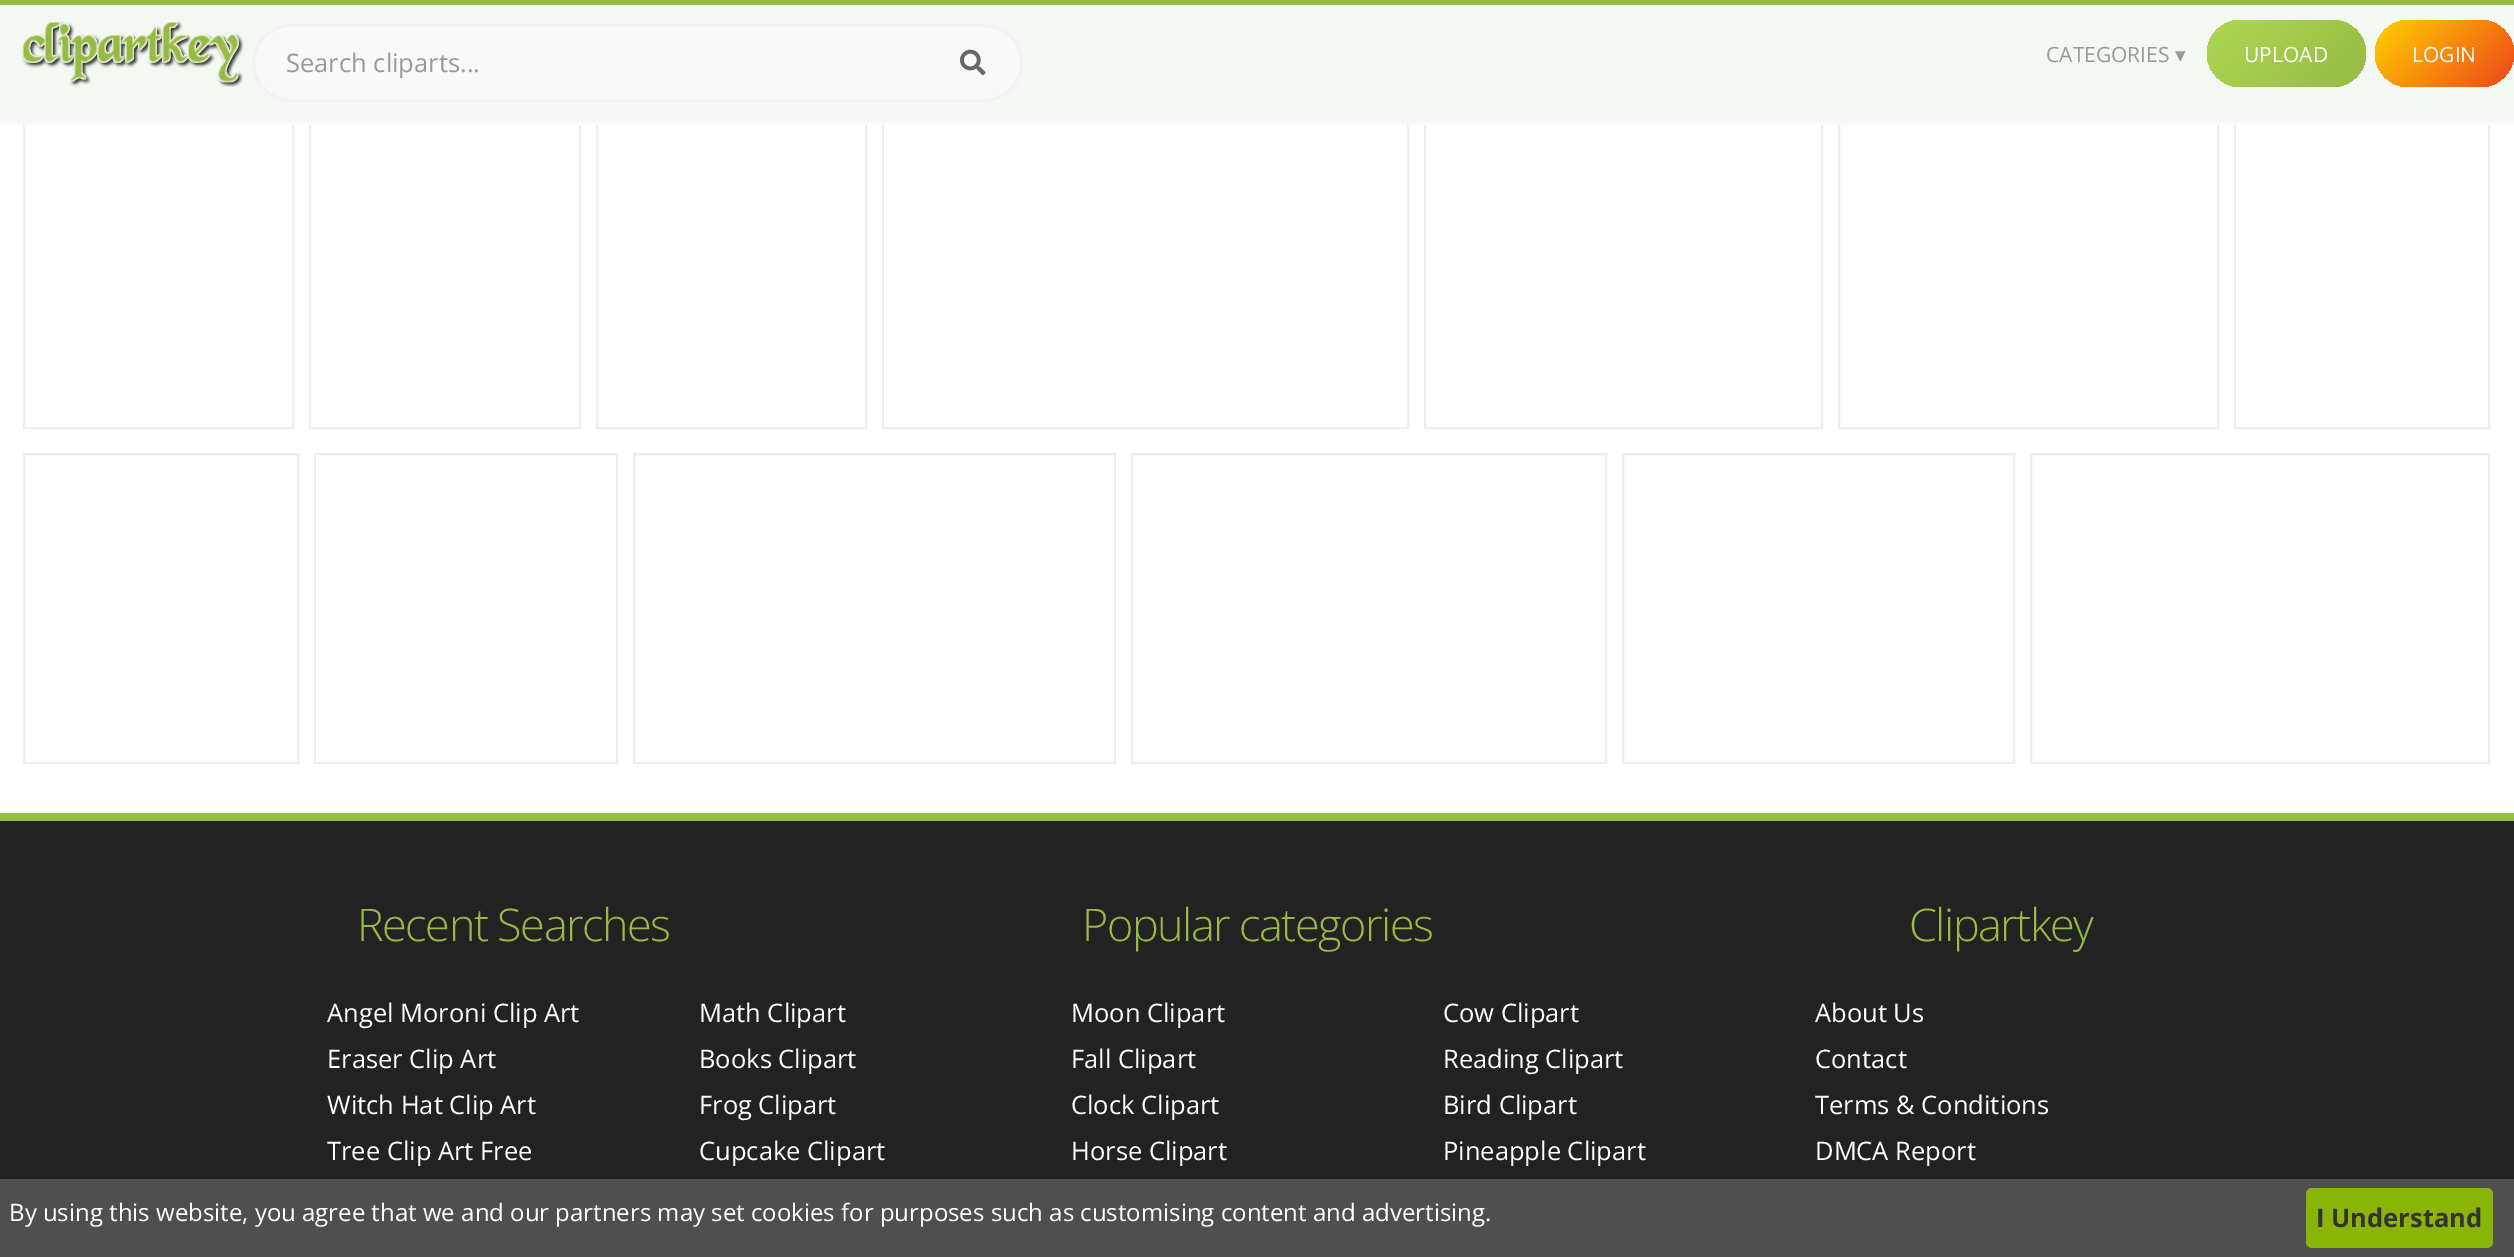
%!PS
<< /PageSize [2514 1257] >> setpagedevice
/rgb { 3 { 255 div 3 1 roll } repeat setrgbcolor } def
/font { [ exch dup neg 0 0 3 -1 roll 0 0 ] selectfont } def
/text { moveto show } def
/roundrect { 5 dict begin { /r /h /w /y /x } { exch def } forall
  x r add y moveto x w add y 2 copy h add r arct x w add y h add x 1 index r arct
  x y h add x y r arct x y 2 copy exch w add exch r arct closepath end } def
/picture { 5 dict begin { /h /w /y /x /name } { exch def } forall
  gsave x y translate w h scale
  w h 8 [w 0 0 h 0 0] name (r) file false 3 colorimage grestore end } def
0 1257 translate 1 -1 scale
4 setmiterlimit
255 255 255 rgb
0 0 2514 1257 rectfill
238 238 238 rgb
2 setlinewidth
24 91 269 337 rectstroke
310 91 270 337 rectstroke
597 91 269 337 rectstroke
883 91 525 337 rectstroke
1425 91 397 337 rectstroke
1839 91 379 337 rectstroke
2235 91 254 337 rectstroke
243 248 242 rgb
0 5 2514 117 rectfill
151 186 69 rgb
0 0 2514 5 rectfill
250 250 250 rgb
0 122 2514 3 rectfill
(img_01.rgb) 21 21 222 66 picture
249 249 249 rgb
253.5 25.5 768 75 37.5 roundrect gsave fill grestore
242 242 242 rgb
3 setlinewidth
stroke
(img_02.rgb) 960 49 26 27 picture
gsave 2207 20 159 67 33.5 roundrect clip newpath
<< /ShadingType 2 /ColorSpace /DeviceRGB /Coords [2229 -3.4 2343 110] /Extend [true true] /Function << /FunctionType 2 /Domain [0 1] /C0 [0.682 0.847 0.322] /C1 [0.592 0.729 0.271] /N 1 >> >> shfill grestore
gsave 2375 20 139 67 33.5 roundrect clip newpath
<< /ShadingType 2 /ColorSpace /DeviceRGB /Coords [2393 1.5 2496 105] /Extend [true true] /Function << /FunctionType 2 /Domain [0 1] /C0 [1 0.824 0] /C1 [0.937 0.271 0.094] /N 1 >> >> shfill grestore
238 238 238 rgb
2 setlinewidth
24 454 274 309 rectstroke
315 454 302 309 rectstroke
634 454 481 309 rectstroke
1132 454 474 309 rectstroke
1623 454 391 309 rectstroke
2031 454 458 309 rectstroke
34 34 34 rgb
0 821 2514 358 rectfill
151 186 69 rgb
0 813 2514 8 rectfill
79 79 79 rgb
0 1179 2514 78 rectfill
138 180 8 rgb
2306 1188 187 60 6 roundrect fill
/OpenSans-Regular 25.5 font
153 153 153 rgb
(Search cliparts...) 286 72 text
/OpenSans-Regular 21 font
(CATEGORIES) 2046 62 text
/DejaVuSans-Regular 21 font
(▾) 2175 62 text
/OpenSans-Regular 21 font
255 255 255 rgb
(UPLOAD) 2244 62 text
(LOGIN) 2412 62 text
/OpenSans-Light 45 font
151 186 69 rgb
357 941 moveto -1.5 0 (Recent Searches) ashow
/OpenSans-Regular 25.5 font
255 255 255 rgb
(Angel Moroni Clip Art) 327 1022 text
(Eraser Clip Art) 327 1068 text
(Witch Hat Clip Art) 327 1114 text
(Tree Clip Art Free) 327 1160 text
/OpenSans-Light 45 font
151 186 69 rgb
1082 941 moveto -1.5 0 (Popular categories) ashow
/OpenSans-Regular 25.5 font
255 255 255 rgb
(Math Clipart) 699 1022 text
(Books Clipart) 699 1068 text
(Frog Clipart) 699 1114 text
(Cupcake Clipart) 699 1160 text
(Moon Clipart) 1071 1022 text
(Fall Clipart) 1071 1068 text
(Clock Clipart) 1071 1114 text
(Horse Clipart) 1071 1160 text
(Cow Clipart) 1443 1022 text
(Reading Clipart) 1443 1068 text
(Bird Clipart) 1443 1114 text
(Pineapple Clipart) 1443 1160 text
/OpenSans-Light 45 font
151 186 69 rgb
1909 941 moveto -1.5 0 (Clipartkey) ashow
/OpenSans-Regular 25.5 font
255 255 255 rgb
(About Us) 1815 1022 text
(Contact) 1815 1068 text
(Terms & Conditions) 1815 1114 text
(DMCA Report) 1815 1160 text
/OpenSans-Regular 24 font
(By using this website, you agree that we and our partners may set cookies for purposes such as customising content and advertising.) 9 1221 text
/OpenSans-Bold 25.5 font
51 51 51 rgb
(I Understand) 2316 1227 text
showpage
